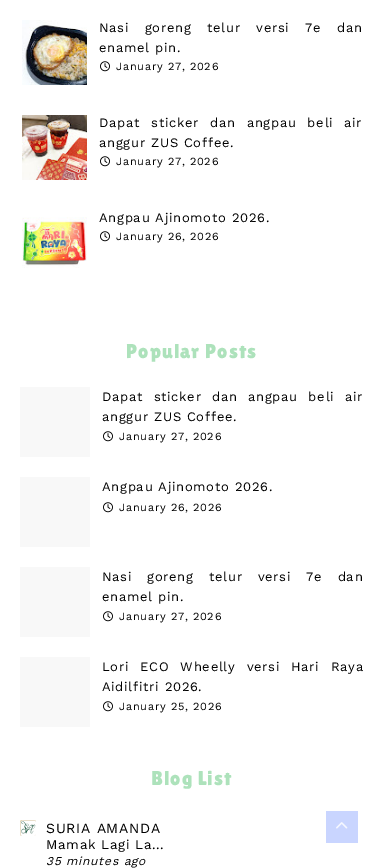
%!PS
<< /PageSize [383 868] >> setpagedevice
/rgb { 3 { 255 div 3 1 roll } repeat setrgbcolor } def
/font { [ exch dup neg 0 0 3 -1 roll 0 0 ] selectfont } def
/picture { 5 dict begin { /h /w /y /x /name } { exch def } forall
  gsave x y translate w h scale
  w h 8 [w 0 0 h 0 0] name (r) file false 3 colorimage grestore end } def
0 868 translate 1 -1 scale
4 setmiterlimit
255 255 255 rgb
0 0 383 868 rectfill
(img_01.rgb) 22 20 65 65 picture
(img_02.rgb) 100 61 10 11 picture
(img_03.rgb) 22 115 65 65 picture
(img_02.rgb) 100 156 10 11 picture
(img_04.rgb) 22 217 65 51 picture
(img_02.rgb) 100 231 10 11 picture
248 248 248 rgb
20 387 70 70 rectfill
(img_02.rgb) 103 431 10 11 picture
20 477 70 70 rectfill
(img_02.rgb) 103 502 10 11 picture
20 567 70 70 rectfill
(img_02.rgb) 103 611 10 11 picture
20 657 70 70 rectfill
(img_02.rgb) 103 701 10 11 picture
(img_05.rgb) 20 820 16 16 picture
201 213 255 rgb
326 811 32 32 rectfill
(img_06.rgb) 336 822 12 7 picture
/WorkSans-Regular 13 font
0 0 0 rgb
99 32 moveto 10.5 0 32 0.7 0 (Nasi goreng telur versi 7e dan) awidthshow
99 52 moveto 0.7 0 (enamel pin.) ashow
/WorkSans-Regular 11 font
116 70 moveto 0.7 0 (January 27, 2026) ashow
/WorkSans-Regular 13 font
99 127 moveto 5.75 0 32 0.7 0 (Dapat sticker dan angpau beli air) awidthshow
99 147 moveto 0.7 0 (anggur ZUS Coffee.) ashow
/WorkSans-Regular 11 font
116 165 moveto 0.7 0 (January 27, 2026) ashow
/WorkSans-Regular 13 font
99 222 moveto 0.7 0 (Angpau Ajinomoto 2026.) ashow
/WorkSans-Regular 11 font
116 240 moveto 0.7 0 (January 26, 2026) ashow
/LilitaOne-Regular 20 font
173 226 187 rgb
126 358 moveto 1 0 (Popular Posts) ashow
/WorkSans-Regular 13 font
0 0 0 rgb
102 401 moveto 5.25 0 32 0.7 0 (Dapat sticker dan angpau beli air) awidthshow
102 421 moveto 0.7 0 (anggur ZUS Coffee.) ashow
/WorkSans-Regular 11 font
119 440 moveto 0.7 0 (January 27, 2026) ashow
/WorkSans-Regular 13 font
102 491 moveto 0.7 0 (Angpau Ajinomoto 2026.) ashow
/WorkSans-Regular 11 font
119 511 moveto 0.7 0 (January 26, 2026) ashow
/WorkSans-Regular 13 font
102 581 moveto 10 0 32 0.7 0 (Nasi goreng telur versi 7e dan) awidthshow
102 601 moveto 0.7 0 (enamel pin.) ashow
/WorkSans-Regular 11 font
119 620 moveto 0.7 0 (January 27, 2026) ashow
/WorkSans-Regular 13 font
102 671 moveto 6 0 32 0.7 0 (Lori ECO Wheelly versi Hari Raya) awidthshow
102 691 moveto 0.7 0 (Aidilfitri 2026.) ashow
/WorkSans-Regular 11 font
119 710 moveto 0.7 0 (January 25, 2026) ashow
/LilitaOne-Regular 20 font
173 226 187 rgb
151 785 moveto 1 0 (Blog List) ashow
/WorkSans-Regular 14 font
0 0 0 rgb
46 833 moveto 0.7 0 (SURIA AMANDA) ashow
/WorkSans-Regular 13.25 font
46 849 moveto 0.7 0 (Mamak Lagi La...) ashow
/WorkSans-Italic 12 font
46 865 moveto 0.7 0 (35 minutes ago) ashow
showpage
